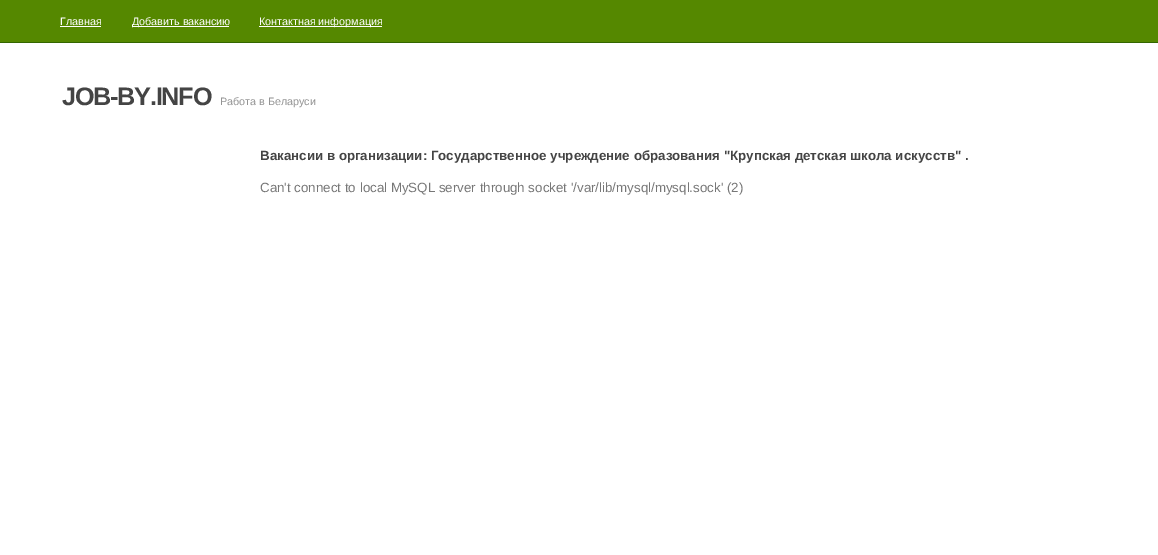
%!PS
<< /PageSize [1158 555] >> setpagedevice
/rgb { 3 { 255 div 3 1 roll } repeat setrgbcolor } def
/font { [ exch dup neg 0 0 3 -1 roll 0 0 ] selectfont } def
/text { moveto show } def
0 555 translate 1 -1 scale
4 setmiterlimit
255 255 255 rgb
0 0 1158 555 rectfill
85 136 0 rgb
0 0 1158 42 rectfill
51 102 0 rgb
0 42 1158 1 rectfill
255 255 255 rgb
60 26 41 1 rectfill
132 26 97 1 rectfill
259 26 123 1 rectfill
/LiberationSans-Regular 10.75 font
(Главная) 60 25 text
(Добавить вакансию) 132 25 text
(Контактная информация) 259 25 text
/LiberationSans-Bold 25.25 font
68 68 68 rgb
62 105 moveto -1.25 0 (JOB-BY.INFO) ashow
/LiberationSans-Regular 10.75 font
148 148 148 rgb
(Работа в Беларуси) 220 105 text
/LiberationSans-Bold 13.33 font
68 68 68 rgb
(Вакансии в организации: Государственное учреждение образования "Крупская детская школа искусств" .) 260 160 text
/LiberationSans-Regular 13.33 font
119 119 119 rgb
(Can't connect to local MySQL server through socket '/var/lib/mysql/mysql.sock' \(2\)) 260 192 text
showpage
